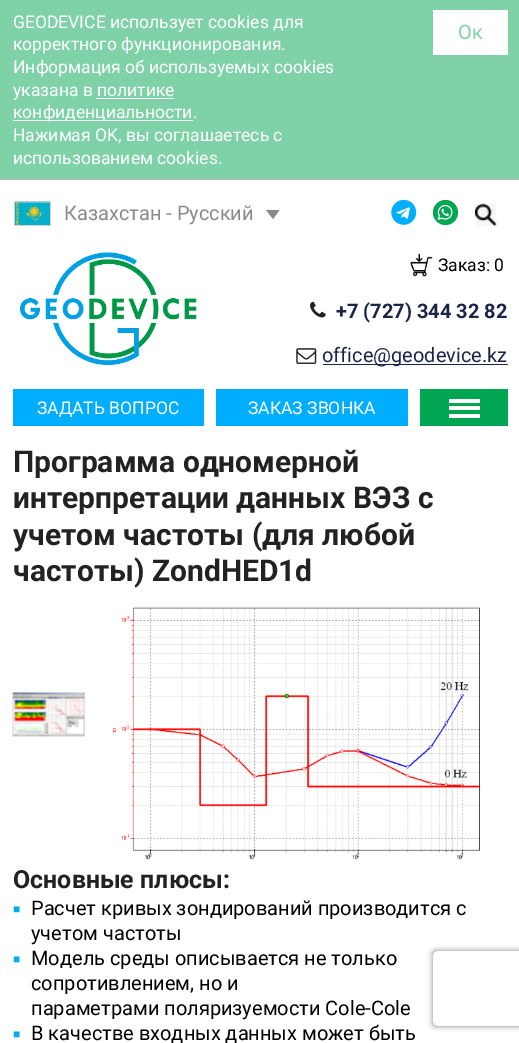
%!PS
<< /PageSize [519 1043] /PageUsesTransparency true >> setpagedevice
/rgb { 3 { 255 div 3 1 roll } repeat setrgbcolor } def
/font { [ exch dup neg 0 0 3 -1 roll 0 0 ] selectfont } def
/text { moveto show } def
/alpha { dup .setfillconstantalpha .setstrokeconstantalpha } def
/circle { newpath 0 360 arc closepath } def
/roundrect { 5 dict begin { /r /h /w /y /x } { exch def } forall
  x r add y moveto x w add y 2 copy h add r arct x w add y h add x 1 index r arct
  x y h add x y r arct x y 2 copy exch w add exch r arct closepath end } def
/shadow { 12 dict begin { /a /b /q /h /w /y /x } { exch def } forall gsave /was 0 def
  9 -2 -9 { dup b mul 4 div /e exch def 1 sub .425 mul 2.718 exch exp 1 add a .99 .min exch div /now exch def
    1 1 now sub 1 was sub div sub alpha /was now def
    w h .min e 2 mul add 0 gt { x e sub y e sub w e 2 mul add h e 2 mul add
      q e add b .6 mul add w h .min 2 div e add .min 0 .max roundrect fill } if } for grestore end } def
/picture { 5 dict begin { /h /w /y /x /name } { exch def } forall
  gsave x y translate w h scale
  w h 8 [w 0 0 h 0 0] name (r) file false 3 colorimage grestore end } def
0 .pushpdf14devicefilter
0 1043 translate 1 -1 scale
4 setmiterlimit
255 255 255 rgb
0 0 519 1043 rectfill
127 210 168 rgb
0 0 519 179 rectfill
185 185 185 rgb
0 179 519 1 rectfill
255 255 255 rgb
96 98 78 1 rectfill
13 120 180 1 rectfill
433 10 75 45 rectfill
(img_01.rgb) 14 201 37 25 picture
138 138 138 rgb
273 219 moveto -7 -9 rlineto 13.5 0 rlineto closepath fill
(img_02.rgb) 391 199 26 26 picture
0 166 82 rgb
445.5 212.5 12.5 circle fill
(img_03.rgb) 437 204 16 16 picture
(img_04.rgb) 475 203 22 24 picture
(img_05.rgb) 20 252 177 113 picture
(img_06.rgb) 410 253 23 24 picture
(img_07.rgb) 310 301 16 17 picture
(img_08.rgb) 296 348 21 16 picture
27 37 73 rgb
323 364 185 1 rectfill
0 174 255 rgb
13 389 191 37 rectfill
216 389 192 37 rectfill
0 166 82 rgb
420 389 88 37 rectfill
255 255 255 rgb
449 414 31 4 rectfill
449 406 31 4 rectfill
449 399 31 4 rectfill
(img_09.rgb) 12 692 73 45 picture
(img_10.rgb) 112 607 368 253 picture
gsave
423 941 moveto 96 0 rlineto 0 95 rlineto -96 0 rlineto closepath 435.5 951 moveto 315 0 rlineto 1.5 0 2.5 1 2.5 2.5 rcurveto 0 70 rlineto 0 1.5 -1 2.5 -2.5 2.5 rcurveto -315 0 rlineto -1.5 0 -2.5 -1 -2.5 -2.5 rcurveto 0 -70 rlineto 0 -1.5 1 -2.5 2.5 -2.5 rcurveto closepath eoclip newpath
128 128 128 rgb
433 951 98 75 2.5 3 1 shadow
grestore
/Roboto-Regular 17.5 font
(GEODEVICE использует cookies для) 13 28 text
(корректного функционирования.) 13 50 text
(Информация об используемых cookies) 13 73 text
(указана в политике) 13 96 text
(конфиденциальности.) 13 118 text
(Нажимая OK, вы соглашаетесь с) 13 141 text
(использованием cookies.) 13 164 text
/Roboto-Regular 20 font
127 210 168 rgb
(Ок) 458 39 text
138 138 138 rgb
(Казахстан - Русский) 64 220 text
/Roboto-Regular 17.5 font
0 0 0 rgb
(Заказ: 0) 438 271 text
/Roboto-Bold 20 font
27 37 73 rgb
(+7 \(727\) 344 32 82) 336 318 text
/Roboto-Regular 20 font
(office@geodevice.kz) 322 362 text
/Roboto-Regular 17.5 font
255 255 255 rgb
(ЗАДАТЬ ВОПРОС) 37 414 text
(ЗАКАЗ ЗВОНКА) 248 414 text
/Roboto-Bold 30 font
34 34 34 rgb
(Программа одномерной) 13 472 text
(интерпретации данных ВЭЗ с) 13 508 text
(учетом частоты \(для любой) 13 545 text
(частоты\) ZondHED1d) 13 581 text
/Roboto-Bold 25 font
(Основные плюсы:) 13 888 text
/LiberationSans-Regular 12 font
0 173 236 rgb
(■) 13 913 text
/Roboto-Regular 20 font
0 0 0 rgb
(Расчет кривых зондирований производится с) 31 915 text
(учетом частоты) 31 940 text
/LiberationSans-Regular 12 font
0 173 236 rgb
(■) 13 963 text
/Roboto-Regular 20 font
0 0 0 rgb
(Модель среды описывается не только) 31 965 text
(сопротивлением, но и) 31 990 text
(параметрами поляризуемости Cole-Cole) 31 1015 text
/LiberationSans-Regular 12 font
0 173 236 rgb
(■) 13 1038 text
/Roboto-Regular 20 font
0 0 0 rgb
(В качестве входных данных может быть) 31 1040 text
.poppdf14devicefilter showpage
